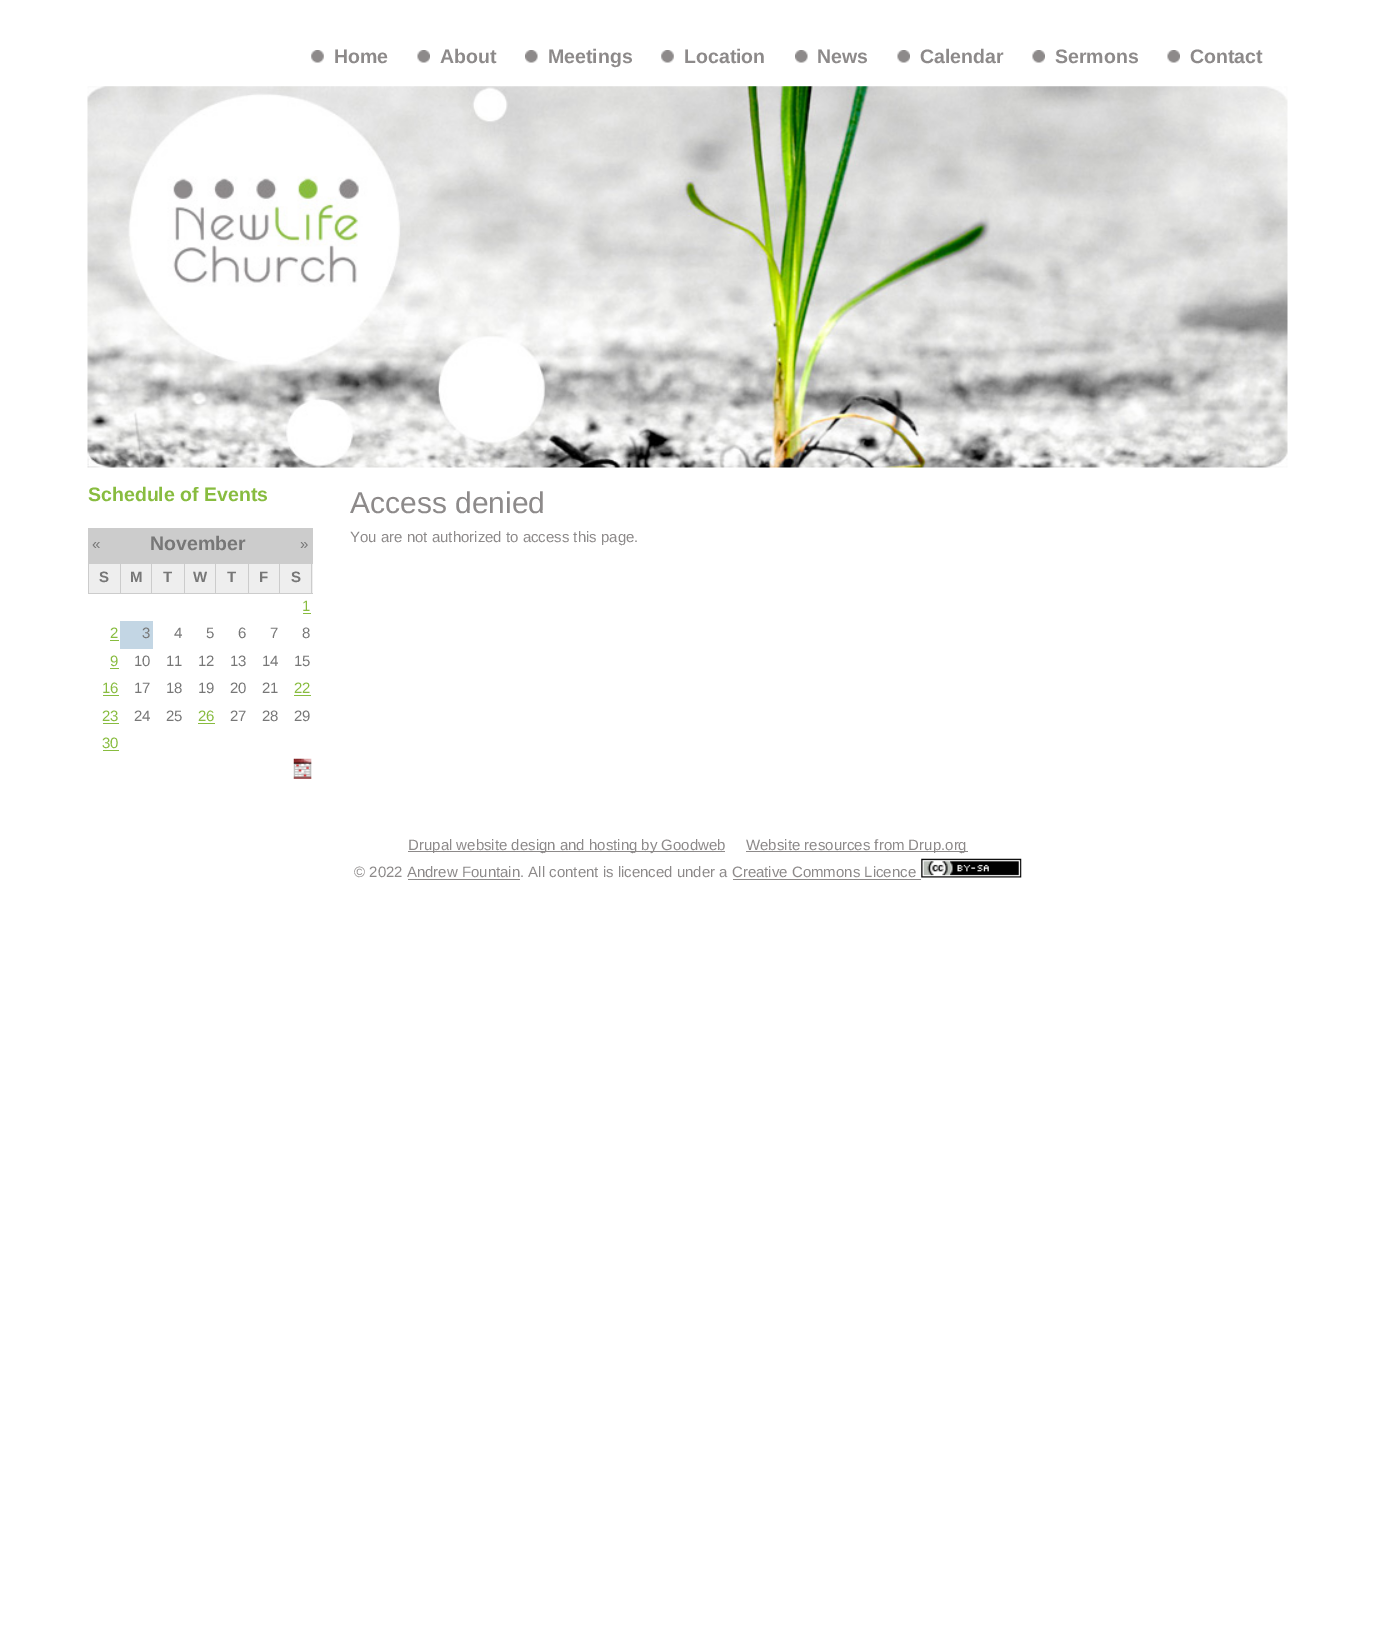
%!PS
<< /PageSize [1375 1643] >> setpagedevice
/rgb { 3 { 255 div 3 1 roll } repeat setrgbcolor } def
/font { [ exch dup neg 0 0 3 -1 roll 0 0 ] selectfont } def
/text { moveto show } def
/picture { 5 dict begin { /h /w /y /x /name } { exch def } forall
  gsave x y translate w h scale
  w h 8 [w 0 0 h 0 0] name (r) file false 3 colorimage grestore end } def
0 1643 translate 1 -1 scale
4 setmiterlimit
255 255 255 rgb
0 0 1375 1643 rectfill
(img_01.rgb) 311 50 13 13 picture
(img_02.rgb) 417 50 13 13 picture
(img_03.rgb) 525 50 13 13 picture
(img_01.rgb) 661 50 13 13 picture
(img_04.rgb) 795 50 13 13 picture
(img_02.rgb) 897 50 13 13 picture
(img_02.rgb) 1032 50 13 13 picture
(img_05.rgb) 1167 50 13 13 picture
(img_06.rgb) 87 86 1201 382 picture
204 204 204 rgb
88 528 225 35 rectfill
238 238 238 rgb
89 564 31 29 rectfill
204 204 204 rgb
279 563 34 1 rectfill
238 238 238 rgb
280 564 33 29 rectfill
204 204 204 rgb
311 563 1 31 rectfill
279 593 34 1 rectfill
279 563 1 31 rectfill
248 563 32 1 rectfill
248 593 32 1 rectfill
248 563 1 31 rectfill
215 563 34 1 rectfill
215 593 34 1 rectfill
215 563 1 31 rectfill
184 563 32 1 rectfill
184 593 32 1 rectfill
184 563 1 31 rectfill
151 563 34 1 rectfill
238 238 238 rgb
121 564 63 29 rectfill
204 204 204 rgb
151 593 34 1 rectfill
151 563 1 31 rectfill
120 563 33 1 rectfill
120 593 33 1 rectfill
120 563 1 31 rectfill
88 563 33 1 rectfill
88 593 33 1 rectfill
88 563 1 31 rectfill
238 238 238 rgb
185 564 30 29 rectfill
216 564 32 29 rectfill
249 564 30 29 rectfill
136 188 63 rgb
303 613 8 1 rectfill
110 640 9 1 rectfill
195 214 228 rgb
120 621 33 28 rectfill
136 188 63 rgb
110 668 9 1 rectfill
103 695 16 1 rectfill
294 695 17 1 rectfill
103 723 16 1 rectfill
198 723 17 1 rectfill
103 750 16 1 rectfill
(img_07.rgb) 293 758 19 21 picture
141 138 138 rgb
408 851 317 1 rectfill
746 851 222 1 rectfill
(img_08.rgb) 921 858 101 20 picture
408 879 112 1 rectfill
733 879 188 1 rectfill
/LiberationSans-Bold 19.5 font
(Home) 334 63 text
(About) 440 63 text
(Meetings) 548 63 text
(Location) 684 63 text
(News) 817 63 text
(Calendar) 920 63 text
(Sermons) 1055 63 text
(Contact) 1190 63 text
136 188 63 rgb
(Schedule of Events) 88 501 text
/LiberationSans-Regular 15 font
119 119 119 rgb
(«) 92 549 text
/LiberationSans-Bold 19.5 font
(November) 150 550 text
/LiberationSans-Regular 15 font
(») 300 549 text
/LiberationSans-Bold 15 font
(S) 99 582 text
(M) 130 582 text
(T) 163 582 text
(W) 193 582 text
(T) 227 582 text
(F) 259 582 text
(S) 291 582 text
/LiberationSans-Regular 15 font
136 188 63 rgb
(1) 302 611 text
(2) 110 638 text
119 119 119 rgb
(3) 142 638 text
(4) 174 638 text
(5) 206 638 text
(6) 238 638 text
(7) 270 638 text
(8) 302 638 text
136 188 63 rgb
(9) 110 666 text
119 119 119 rgb
(10) 134 666 text
(11) 166 666 text
(12) 198 666 text
(13) 230 666 text
(14) 262 666 text
(15) 294 666 text
136 188 63 rgb
(16) 102 693 text
119 119 119 rgb
(17) 134 693 text
(18) 166 693 text
(19) 198 693 text
(20) 230 693 text
(21) 262 693 text
136 188 63 rgb
(22) 294 693 text
(23) 102 721 text
119 119 119 rgb
(24) 134 721 text
(25) 166 721 text
136 188 63 rgb
(26) 198 721 text
119 119 119 rgb
(27) 230 721 text
(28) 262 721 text
(29) 294 721 text
136 188 63 rgb
(30) 102 748 text
/LiberationSans-Regular 30 font
141 138 138 rgb
(Access denied) 350 513 text
/LiberationSans-Regular 15 font
(You are not authorized to access this page.) 350 542 text
(Drupal website design and hosting by Goodweb) 408 850 text
(Website resources from Drup.org) 746 850 text
(© 2022 Andrew Fountain. All content is licenced under a Creative Commons Licence) 354 877 text
showpage
